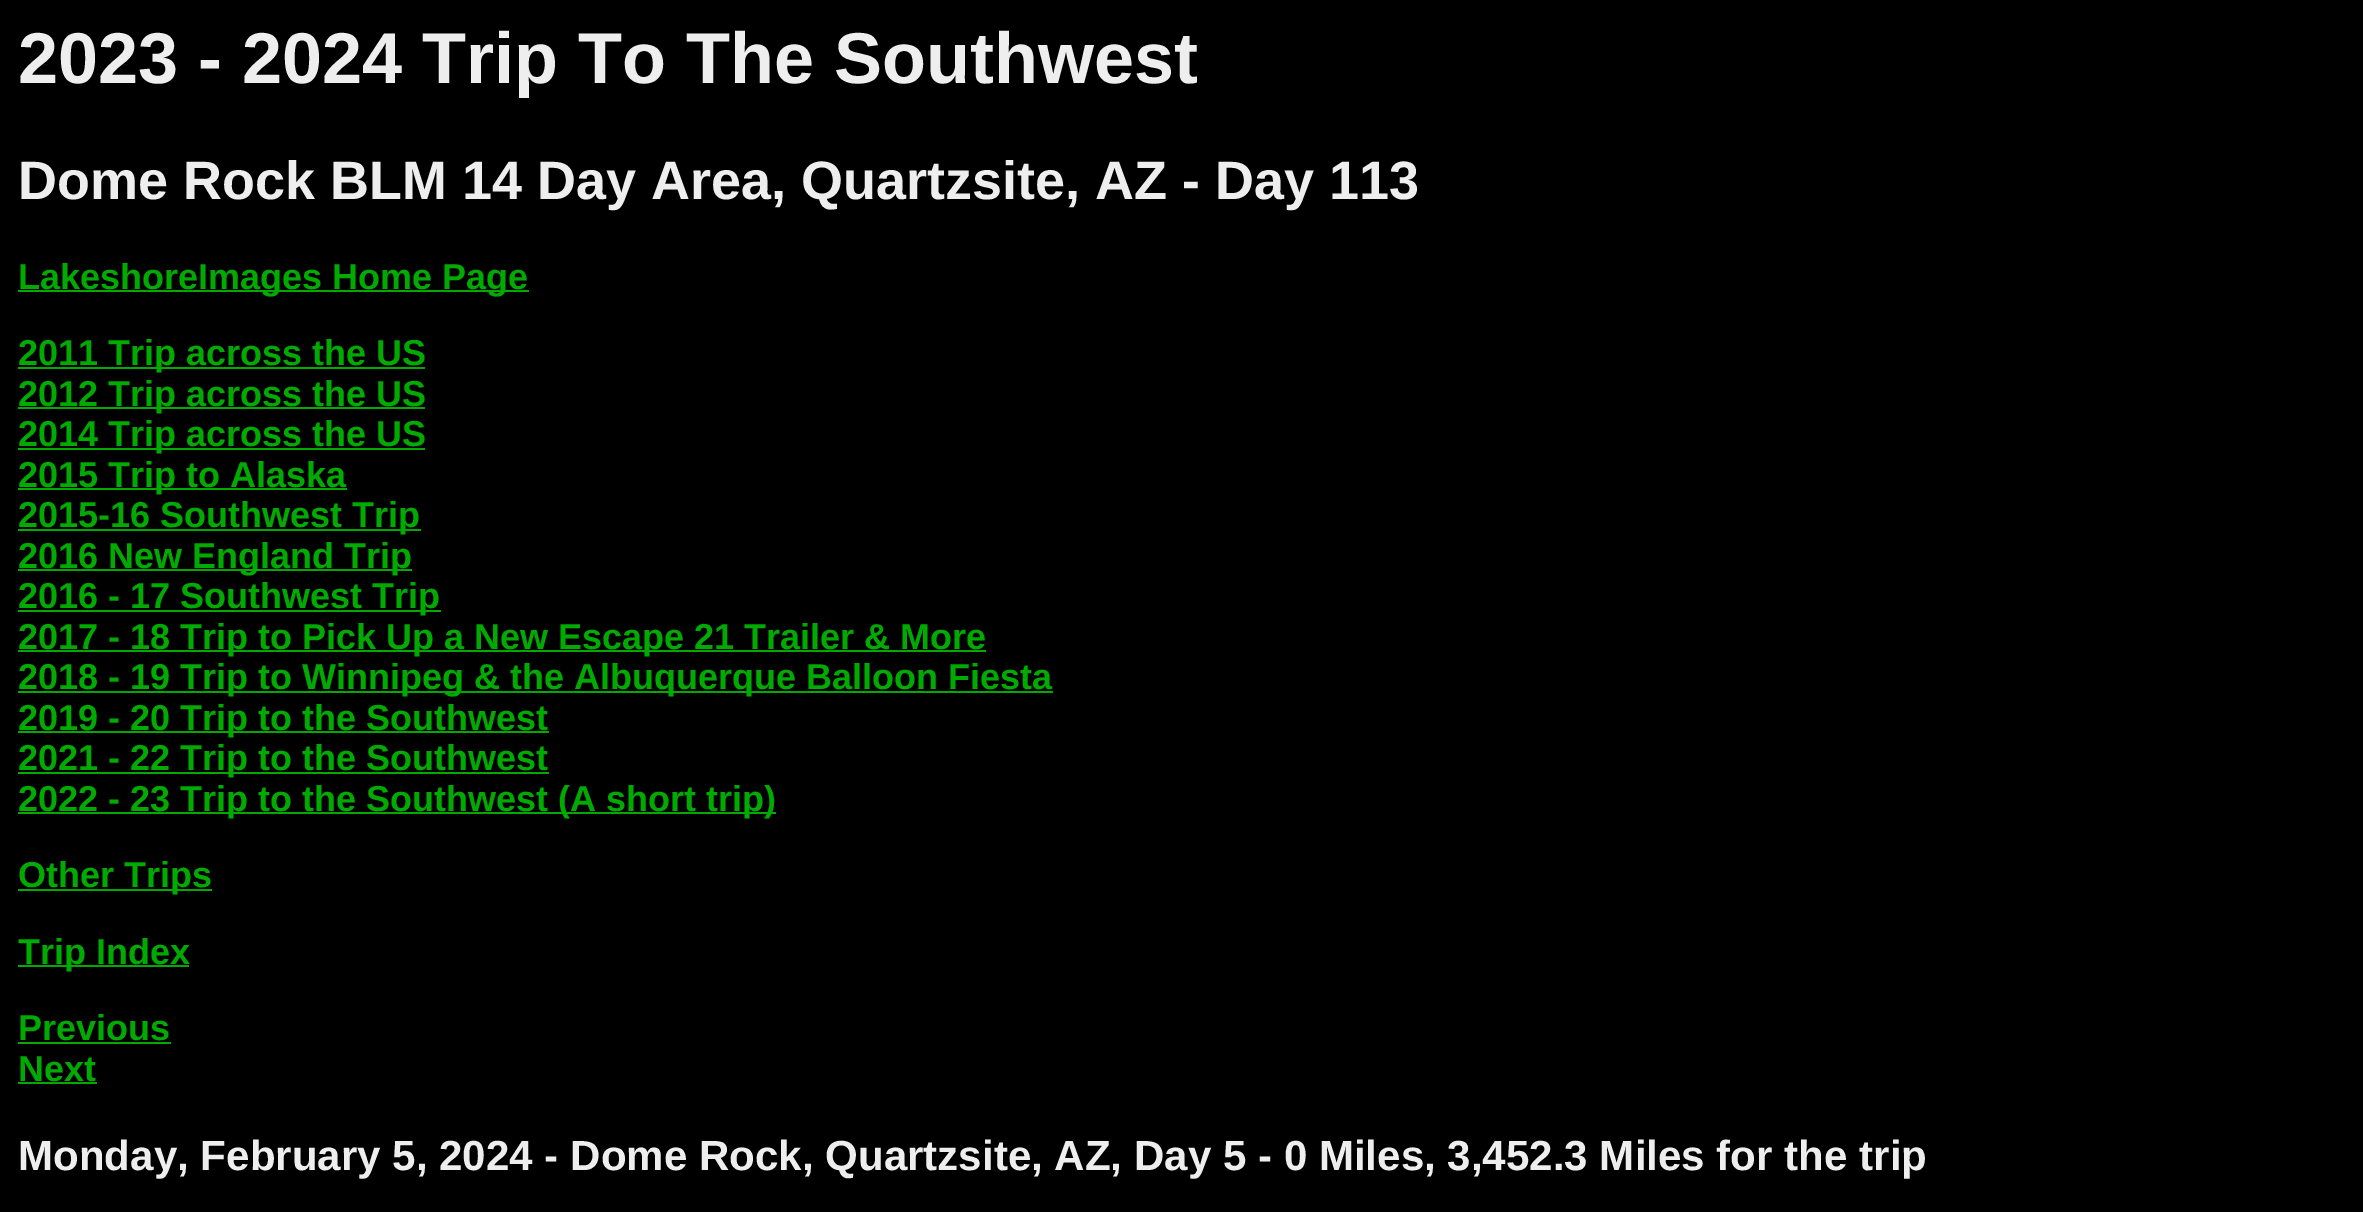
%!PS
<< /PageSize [2363 1212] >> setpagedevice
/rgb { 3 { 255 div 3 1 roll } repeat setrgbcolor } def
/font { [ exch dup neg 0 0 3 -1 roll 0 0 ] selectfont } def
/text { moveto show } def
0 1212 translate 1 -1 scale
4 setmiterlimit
0 0 0 rgb
0 0 2363 1212 rectfill
0 170 0 rgb
18 290 511 2 rectfill
18 367 407 2 rectfill
18 407 407 2 rectfill
18 448 407 2 rectfill
18 488 329 2 rectfill
18 529 403 2 rectfill
18 569 394 2 rectfill
18 610 423 2 rectfill
18 650 968 2 rectfill
18 691 1035 2 rectfill
18 731 531 2 rectfill
18 772 531 2 rectfill
18 812 758 2 rectfill
18 889 194 2 rectfill
18 965 171 2 rectfill
18 1042 153 2 rectfill
18 1082 79 2 rectfill
/LiberationSans-Bold 72 font
238 238 238 rgb
(2023 - 2024 Trip To The Southwest) 18 83 text
/LiberationSans-Bold 54 font
(Dome Rock BLM 14 Day Area, Quartzsite, AZ - Day 113) 18 199 text
/LiberationSans-Bold 36 font
0 170 0 rgb
(LakeshoreImages Home Page) 18 289 text
(2011 Trip across the US) 18 365 text
(2012 Trip across the US) 18 406 text
(2014 Trip across the US) 18 446 text
(2015 Trip to Alaska) 18 487 text
(2015-16 Southwest Trip) 18 527 text
(2016 New England Trip) 18 568 text
(2016 - 17 Southwest Trip) 18 608 text
(2017 - 18 Trip to Pick Up a New Escape 21 Trailer & More) 18 649 text
(2018 - 19 Trip to Winnipeg & the Albuquerque Balloon Fiesta) 18 689 text
(2019 - 20 Trip to the Southwest) 18 730 text
(2021 - 22 Trip to the Southwest) 18 770 text
(2022 - 23 Trip to the Southwest \(A short trip\)) 18 811 text
(Other Trips) 18 887 text
(Trip Index) 18 964 text
(Previous) 18 1040 text
(Next) 18 1081 text
/LiberationSans-Bold 42.1 font
238 238 238 rgb
(Monday, February 5, 2024 - Dome Rock, Quartzsite, AZ, Day 5 - 0 Miles, 3,452.3 Miles for the trip) 18 1170 text
showpage
